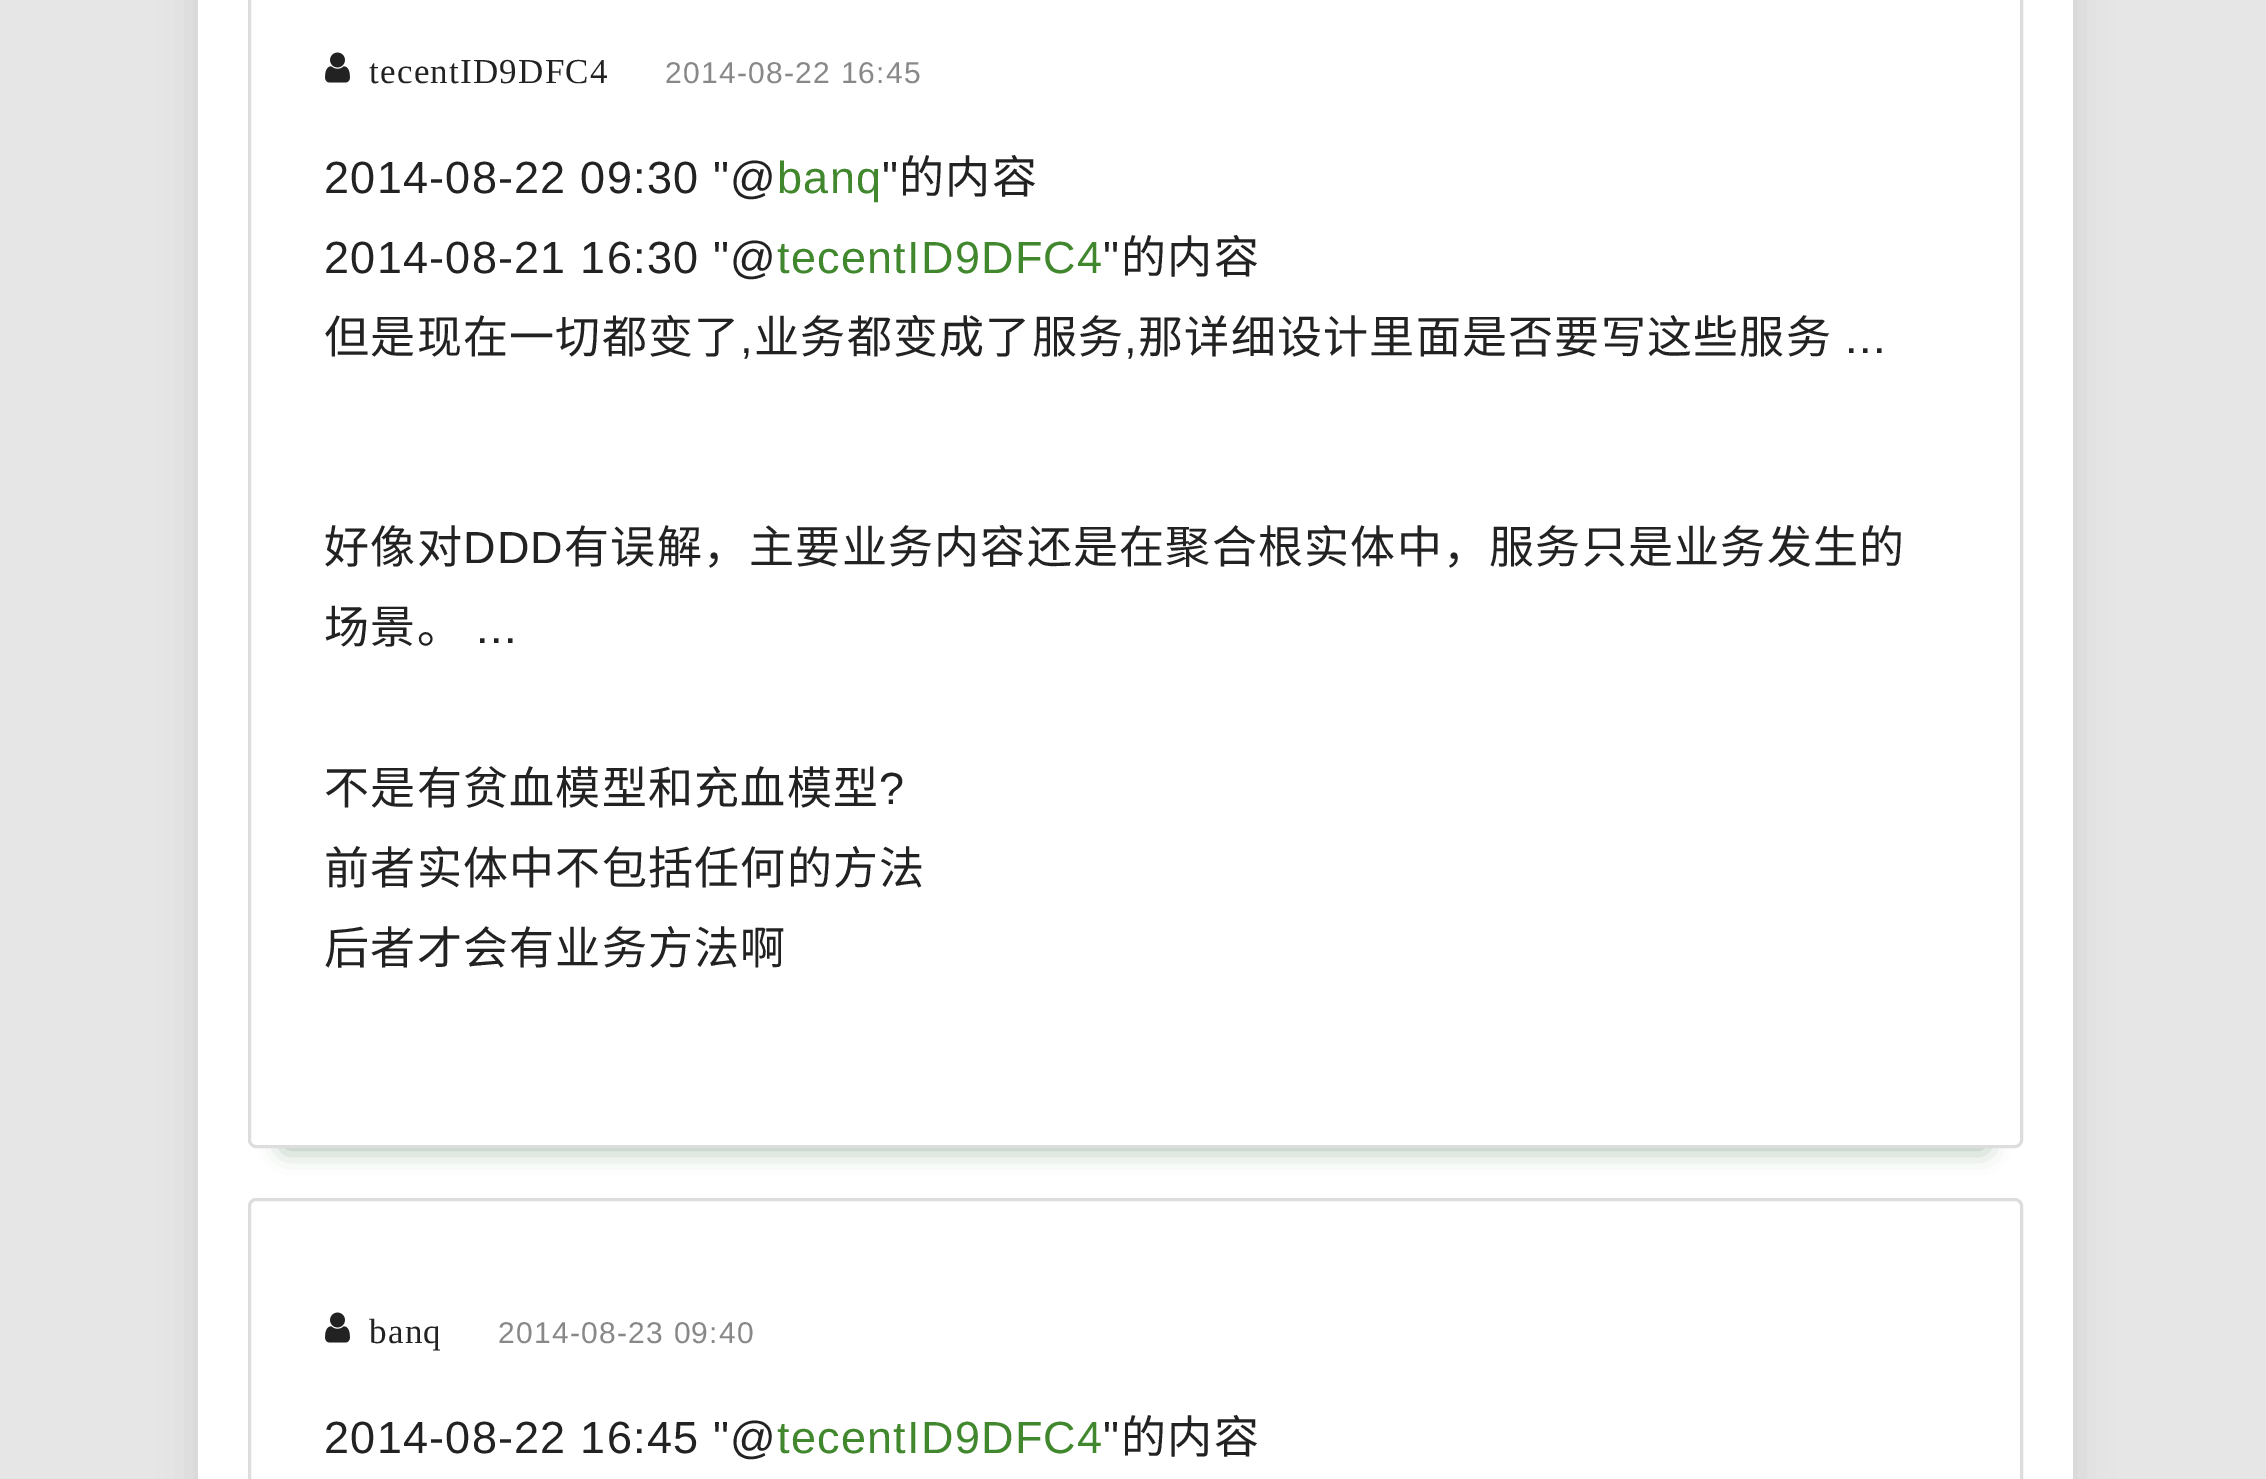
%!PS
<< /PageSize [2266 1479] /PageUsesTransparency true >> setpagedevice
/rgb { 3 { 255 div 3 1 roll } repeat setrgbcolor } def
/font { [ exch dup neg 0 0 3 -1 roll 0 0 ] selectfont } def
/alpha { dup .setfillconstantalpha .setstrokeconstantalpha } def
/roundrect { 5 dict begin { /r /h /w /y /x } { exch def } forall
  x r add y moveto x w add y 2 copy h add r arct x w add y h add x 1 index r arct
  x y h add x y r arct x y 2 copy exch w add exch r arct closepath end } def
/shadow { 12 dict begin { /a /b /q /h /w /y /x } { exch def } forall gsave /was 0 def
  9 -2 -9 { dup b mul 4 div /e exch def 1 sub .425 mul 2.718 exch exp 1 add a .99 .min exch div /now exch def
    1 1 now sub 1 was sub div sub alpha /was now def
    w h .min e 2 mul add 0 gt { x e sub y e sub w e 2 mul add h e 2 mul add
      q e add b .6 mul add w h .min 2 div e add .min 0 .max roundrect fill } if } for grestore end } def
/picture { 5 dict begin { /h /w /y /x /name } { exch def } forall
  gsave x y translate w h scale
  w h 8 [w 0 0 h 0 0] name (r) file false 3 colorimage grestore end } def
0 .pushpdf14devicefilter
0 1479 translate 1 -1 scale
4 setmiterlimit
230 230 230 rgb
0 0 2266 1479 rectfill
0 0 0 rgb
198 -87 1875 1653 30 19 0.1 shadow
255 255 255 rgb
198 0 1875 1479 rectfill
7 62 11 rgb
285 13 1700 1135 0 12.5 0.4 shadow
255 255 255 rgb
249.5 -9.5 1772 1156 6.5 roundrect gsave fill grestore
221 221 221 rgb
3 setlinewidth
stroke
(img_01.rgb) 325 52 25 31 picture
249.5 1199.5 1772 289 6.5 roundrect stroke
(img_01.rgb) 325 1312 25 31 picture
/LiberationSerif-Regular 35 font
34 34 34 rgb
369 83 moveto 1.25 0 (tecentID9DFC4) ashow
/LiberationSans-Regular 30 font
136 136 136 rgb
665 83 moveto 1.25 0 (2014-08-22 16:45) ashow
/LiberationSans-Regular 45 font
34 34 34 rgb
324 193 moveto 1.25 0 (2014-08-22 09:30 "@) ashow
65 135 45 rgb
777 193 moveto 1.25 0 (banq) ashow
34 34 34 rgb
882 193 moveto 1.25 0 (") ashow
/NotoSansCJKSC-Regular 45 font
899 193 moveto 1.25 0 (的内容) ashow
/LiberationSans-Regular 45 font
324 273 moveto 1.25 0 (2014-08-21 16:30 "@) ashow
65 135 45 rgb
777 273 moveto 1.25 0 (tecentID9DFC4) ashow
34 34 34 rgb
1103 273 moveto 1.25 0 (") ashow
/NotoSansCJKSC-Regular 45 font
1121 273 moveto 1.25 0 (的内容) ashow
324 353 moveto 1.25 0 (但是现在一切都变了) ashow
/LiberationSans-Regular 45 font
740 353 moveto 1.25 0 (,) ashow
/NotoSansCJKSC-Regular 45 font
754 353 moveto 1.25 0 (业务都变成了服务) ashow
/LiberationSans-Regular 45 font
1124 353 moveto 1.25 0 (,) ashow
/NotoSansCJKSC-Regular 45 font
1138 353 moveto 1.25 0 (那详细设计里面是否要写这些服务) ashow
/LiberationSans-Regular 45 font
1845 353 moveto 1.25 0 (...) ashow
/NotoSansCJKSC-Regular 45 font
324 563 moveto 1.25 0 (好像对) ashow
/LiberationSans-Regular 45 font
463 563 moveto 1.25 0 (DDD) ashow
/NotoSansCJKSC-Regular 45 font
564 563 moveto 1.25 0 (有误解，主要业务内容还是在聚合根实体中，服务只是业务发生的) ashow
324 643 moveto 1.25 0 (场景。) ashow
/LiberationSans-Regular 45 font
476 643 moveto 1.25 0 (...) ashow
/NotoSansCJKSC-Regular 45 font
324 804 moveto 1.25 0 (不是有贫血模型和充血模型) ashow
/LiberationSans-Regular 45 font
879 804 moveto 1.25 0 (?) ashow
/NotoSansCJKSC-Regular 45 font
324 884 moveto 1.25 0 (前者实体中不包括任何的方法) ashow
324 964 moveto 1.25 0 (后者才会有业务方法啊) ashow
/LiberationSerif-Regular 35 font
369 1343 moveto 1.25 0 (banq) ashow
/LiberationSans-Regular 30 font
136 136 136 rgb
498 1343 moveto 1.25 0 (2014-08-23 09:40) ashow
/LiberationSans-Regular 45 font
34 34 34 rgb
324 1453 moveto 1.25 0 (2014-08-22 16:45 "@) ashow
65 135 45 rgb
777 1453 moveto 1.25 0 (tecentID9DFC4) ashow
34 34 34 rgb
1103 1453 moveto 1.25 0 (") ashow
/NotoSansCJKSC-Regular 45 font
1121 1453 moveto 1.25 0 (的内容) ashow
.poppdf14devicefilter showpage
